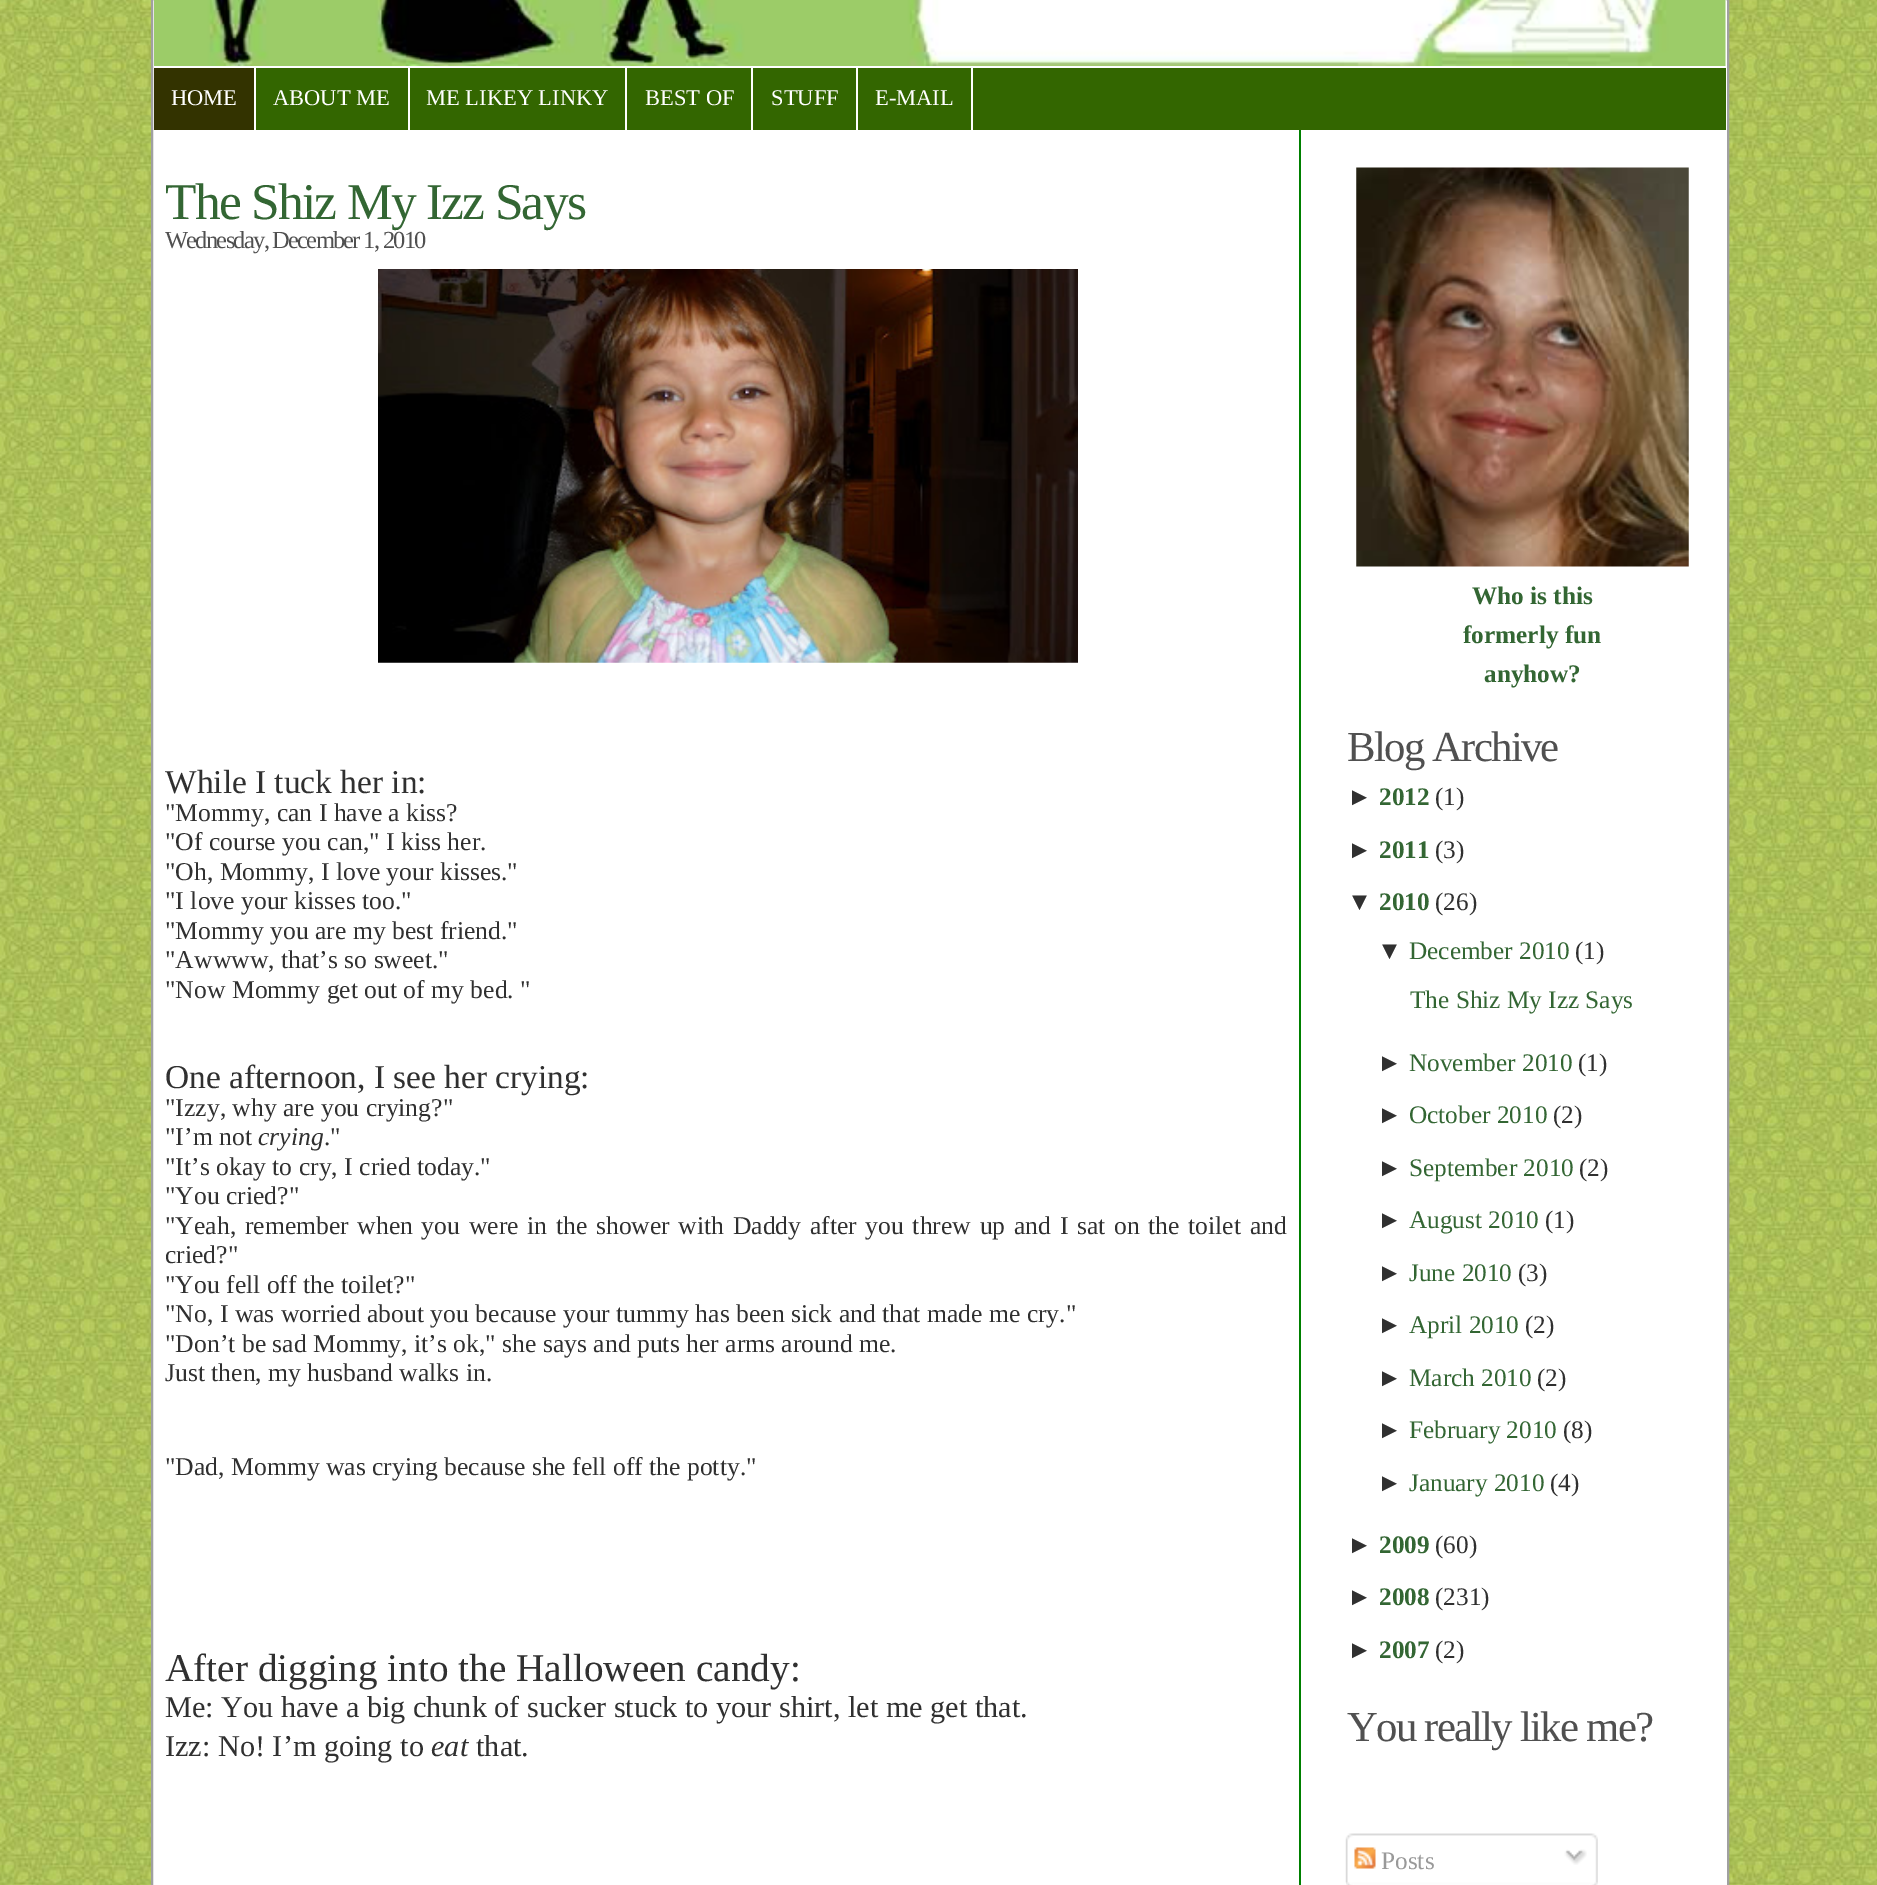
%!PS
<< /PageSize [1877 1885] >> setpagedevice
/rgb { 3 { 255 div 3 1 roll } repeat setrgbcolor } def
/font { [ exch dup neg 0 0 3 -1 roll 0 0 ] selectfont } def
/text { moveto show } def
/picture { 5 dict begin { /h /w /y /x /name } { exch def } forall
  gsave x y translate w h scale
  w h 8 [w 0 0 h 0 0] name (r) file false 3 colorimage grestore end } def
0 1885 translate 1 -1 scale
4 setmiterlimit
255 255 255 rgb
0 0 1877 1885 rectfill
(img_01.rgb) 0 0 1877 1885 picture
152 -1 moveto 1576 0 rlineto 0 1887 rlineto -1576 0 rlineto closepath gsave fill grestore
160 160 160 rgb
2 setlinewidth
stroke
(img_02.rgb) 154 0 1572 66 picture
51 102 0 rgb
256 68 1470 62 rectfill
51 51 0 rgb
154 68 100 62 rectfill
255 255 255 rgb
408 68 2 62 rectfill
625 68 2 62 rectfill
751 68 2 62 rectfill
856 68 2 62 rectfill
971 68 2 62 rectfill
0 128 0 rgb
1299 130 2 1755 rectfill
(img_03.rgb) 378 269 700 394 picture
(img_04.rgb) 1356 167 333 400 picture
(img_05.rgb) 1345 1833 253 50 picture
(img_06.rgb) 1354 1847 22 22 picture
(img_07.rgb) 1564 1849 23 16 picture
(img_08.rgb) 1346 1882 252 3 picture
/LiberationSerif-Regular 22.5 font
255 255 255 rgb
(HOME) 171 105 text
(ABOUT ME) 273 105 text
(ME LIKEY LINKY) 426 105 text
(BEST OF) 645 105 text
(STUFF) 771 105 text
(E-MAIL) 875 105 text
/LiberationSerif-Regular 51.5 font
51 102 51 rgb
165 219 moveto -1.75 0 (The Shiz My Izz Says) ashow
/LiberationSerif-Regular 24.5 font
80 80 80 rgb
165 248 moveto -1.75 0 (Wednesday, December 1, 2010) ashow
/LiberationSerif-Regular 33.4 font
48 48 48 rgb
(While I tuck her in:) 165 793 text
/LiberationSerif-Regular 25.65 font
("Mommy, can I have a kiss?) 165 821 text
("Of course you can," I kiss her.) 165 850 text
("Oh, Mommy, I love your kisses.") 165 880 text
("I love your kisses too.") 165 909 text
("Mommy you are my best friend.") 165 939 text
("Awwww, that’s so sweet.") 165 968 text
("Now Mommy get out of my bed. ") 165 998 text
/LiberationSerif-Regular 33.4 font
(One afternoon, I see her crying:) 165 1088 text
/LiberationSerif-Regular 25.65 font
("Izzy, why are you crying?") 165 1116 text
("I’m not) 165 1145 text
/LiberationSerif-Italic 25.65 font
(crying) 258 1145 text
/LiberationSerif-Regular 25.65 font
(.") 324 1145 text
("It’s okay to cry, I cried today.") 165 1175 text
("You cried?") 165 1204 text
165 1234 moveto 2.25 0 32 ("Yeah, remember when you were in the shower with Daddy after you threw up and I sat on the toilet and) widthshow
(cried?") 165 1263 text
("You fell off the toilet?") 165 1293 text
("No, I was worried about you because your tummy has been sick and that made me cry.") 165 1322 text
("Don’t be sad Mommy, it’s ok," she says and puts her arms around me.) 165 1352 text
(Just then, my husband walks in.) 165 1381 text
("Dad, Mommy was crying because she fell off the potty.") 165 1475 text
/LiberationSerif-Regular 39.25 font
(After digging into the Halloween candy:) 165 1681 text
/LiberationSerif-Regular 30.25 font
(Me: You have a big chunk of sucker stuck to your shirt, let me get that.) 165 1717 text
(Izz: No! I’m going to) 165 1756 text
/LiberationSerif-Italic 30.25 font
(eat) 431 1756 text
/LiberationSerif-Regular 30.25 font
(that.) 476 1756 text
/LiberationSerif-Bold 25.25 font
51 102 51 rgb
(Who is this) 1472 604 text
(formerly fun) 1463 643 text
(anyhow?) 1484 682 text
/LiberationSerif-Regular 42.75 font
80 80 80 rgb
1347 761 moveto -1.75 0 (Blog Archive) ashow
/LiberationSans-Bold 25.25 font
48 48 48 rgb
(►) 1347 805 text
/LiberationSerif-Bold 25.25 font
51 102 51 rgb
(2012) 1379 805 text
/LiberationSerif-Regular 25.25 font
48 48 48 rgb
(\(1\)) 1435 805 text
/LiberationSans-Bold 25.25 font
(►) 1347 858 text
/LiberationSerif-Bold 25.25 font
51 102 51 rgb
(2011) 1379 858 text
/LiberationSerif-Regular 25.25 font
48 48 48 rgb
(\(3\)) 1435 858 text
/LiberationSans-Bold 25.25 font
(▼) 1347 910 text
/LiberationSerif-Bold 25.25 font
51 102 51 rgb
(2010) 1379 910 text
/LiberationSerif-Regular 25.25 font
48 48 48 rgb
(\(26\)) 1435 910 text
/LiberationSans-Regular 25.25 font
(▼) 1377 959 text
/LiberationSerif-Regular 25.25 font
51 102 51 rgb
(December 2010) 1409 959 text
48 48 48 rgb
(\(1\)) 1575 959 text
51 102 51 rgb
(The Shiz My Izz Says) 1410 1008 text
/LiberationSans-Regular 25.25 font
48 48 48 rgb
(►) 1377 1071 text
/LiberationSerif-Regular 25.25 font
51 102 51 rgb
(November 2010) 1409 1071 text
48 48 48 rgb
(\(1\)) 1578 1071 text
/LiberationSans-Regular 25.25 font
(►) 1377 1123 text
/LiberationSerif-Regular 25.25 font
51 102 51 rgb
(October 2010) 1409 1123 text
48 48 48 rgb
(\(2\)) 1553 1123 text
/LiberationSans-Regular 25.25 font
(►) 1377 1176 text
/LiberationSerif-Regular 25.25 font
51 102 51 rgb
(September 2010) 1409 1176 text
48 48 48 rgb
(\(2\)) 1579 1176 text
/LiberationSans-Regular 25.25 font
(►) 1377 1228 text
/LiberationSerif-Regular 25.25 font
51 102 51 rgb
(August 2010) 1409 1228 text
48 48 48 rgb
(\(1\)) 1545 1228 text
/LiberationSans-Regular 25.25 font
(►) 1377 1281 text
/LiberationSerif-Regular 25.25 font
51 102 51 rgb
(June 2010) 1409 1281 text
48 48 48 rgb
(\(3\)) 1518 1281 text
/LiberationSans-Regular 25.25 font
(►) 1377 1333 text
/LiberationSerif-Regular 25.25 font
51 102 51 rgb
(April 2010) 1409 1333 text
48 48 48 rgb
(\(2\)) 1525 1333 text
/LiberationSans-Regular 25.25 font
(►) 1377 1386 text
/LiberationSerif-Regular 25.25 font
51 102 51 rgb
(March 2010) 1409 1386 text
48 48 48 rgb
(\(2\)) 1537 1386 text
/LiberationSans-Regular 25.25 font
(►) 1377 1438 text
/LiberationSerif-Regular 25.25 font
51 102 51 rgb
(February 2010) 1409 1438 text
48 48 48 rgb
(\(8\)) 1563 1438 text
/LiberationSans-Regular 25.25 font
(►) 1377 1491 text
/LiberationSerif-Regular 25.25 font
51 102 51 rgb
(January 2010) 1409 1491 text
48 48 48 rgb
(\(4\)) 1550 1491 text
/LiberationSans-Bold 25.25 font
(►) 1347 1553 text
/LiberationSerif-Bold 25.25 font
51 102 51 rgb
(2009) 1379 1553 text
/LiberationSerif-Regular 25.25 font
48 48 48 rgb
(\(60\)) 1435 1553 text
/LiberationSans-Bold 25.25 font
(►) 1347 1605 text
/LiberationSerif-Bold 25.25 font
51 102 51 rgb
(2008) 1379 1605 text
/LiberationSerif-Regular 25.25 font
48 48 48 rgb
(\(231\)) 1435 1605 text
/LiberationSans-Bold 25.25 font
(►) 1347 1658 text
/LiberationSerif-Bold 25.25 font
51 102 51 rgb
(2007) 1379 1658 text
/LiberationSerif-Regular 25.25 font
48 48 48 rgb
(\(2\)) 1435 1658 text
/LiberationSerif-Regular 42.75 font
80 80 80 rgb
1347 1741 moveto -1.75 0 (You really like me?) ashow
/LiberationSerif-Regular 25.25 font
153 153 153 rgb
(Posts) 1381 1869 text
showpage
